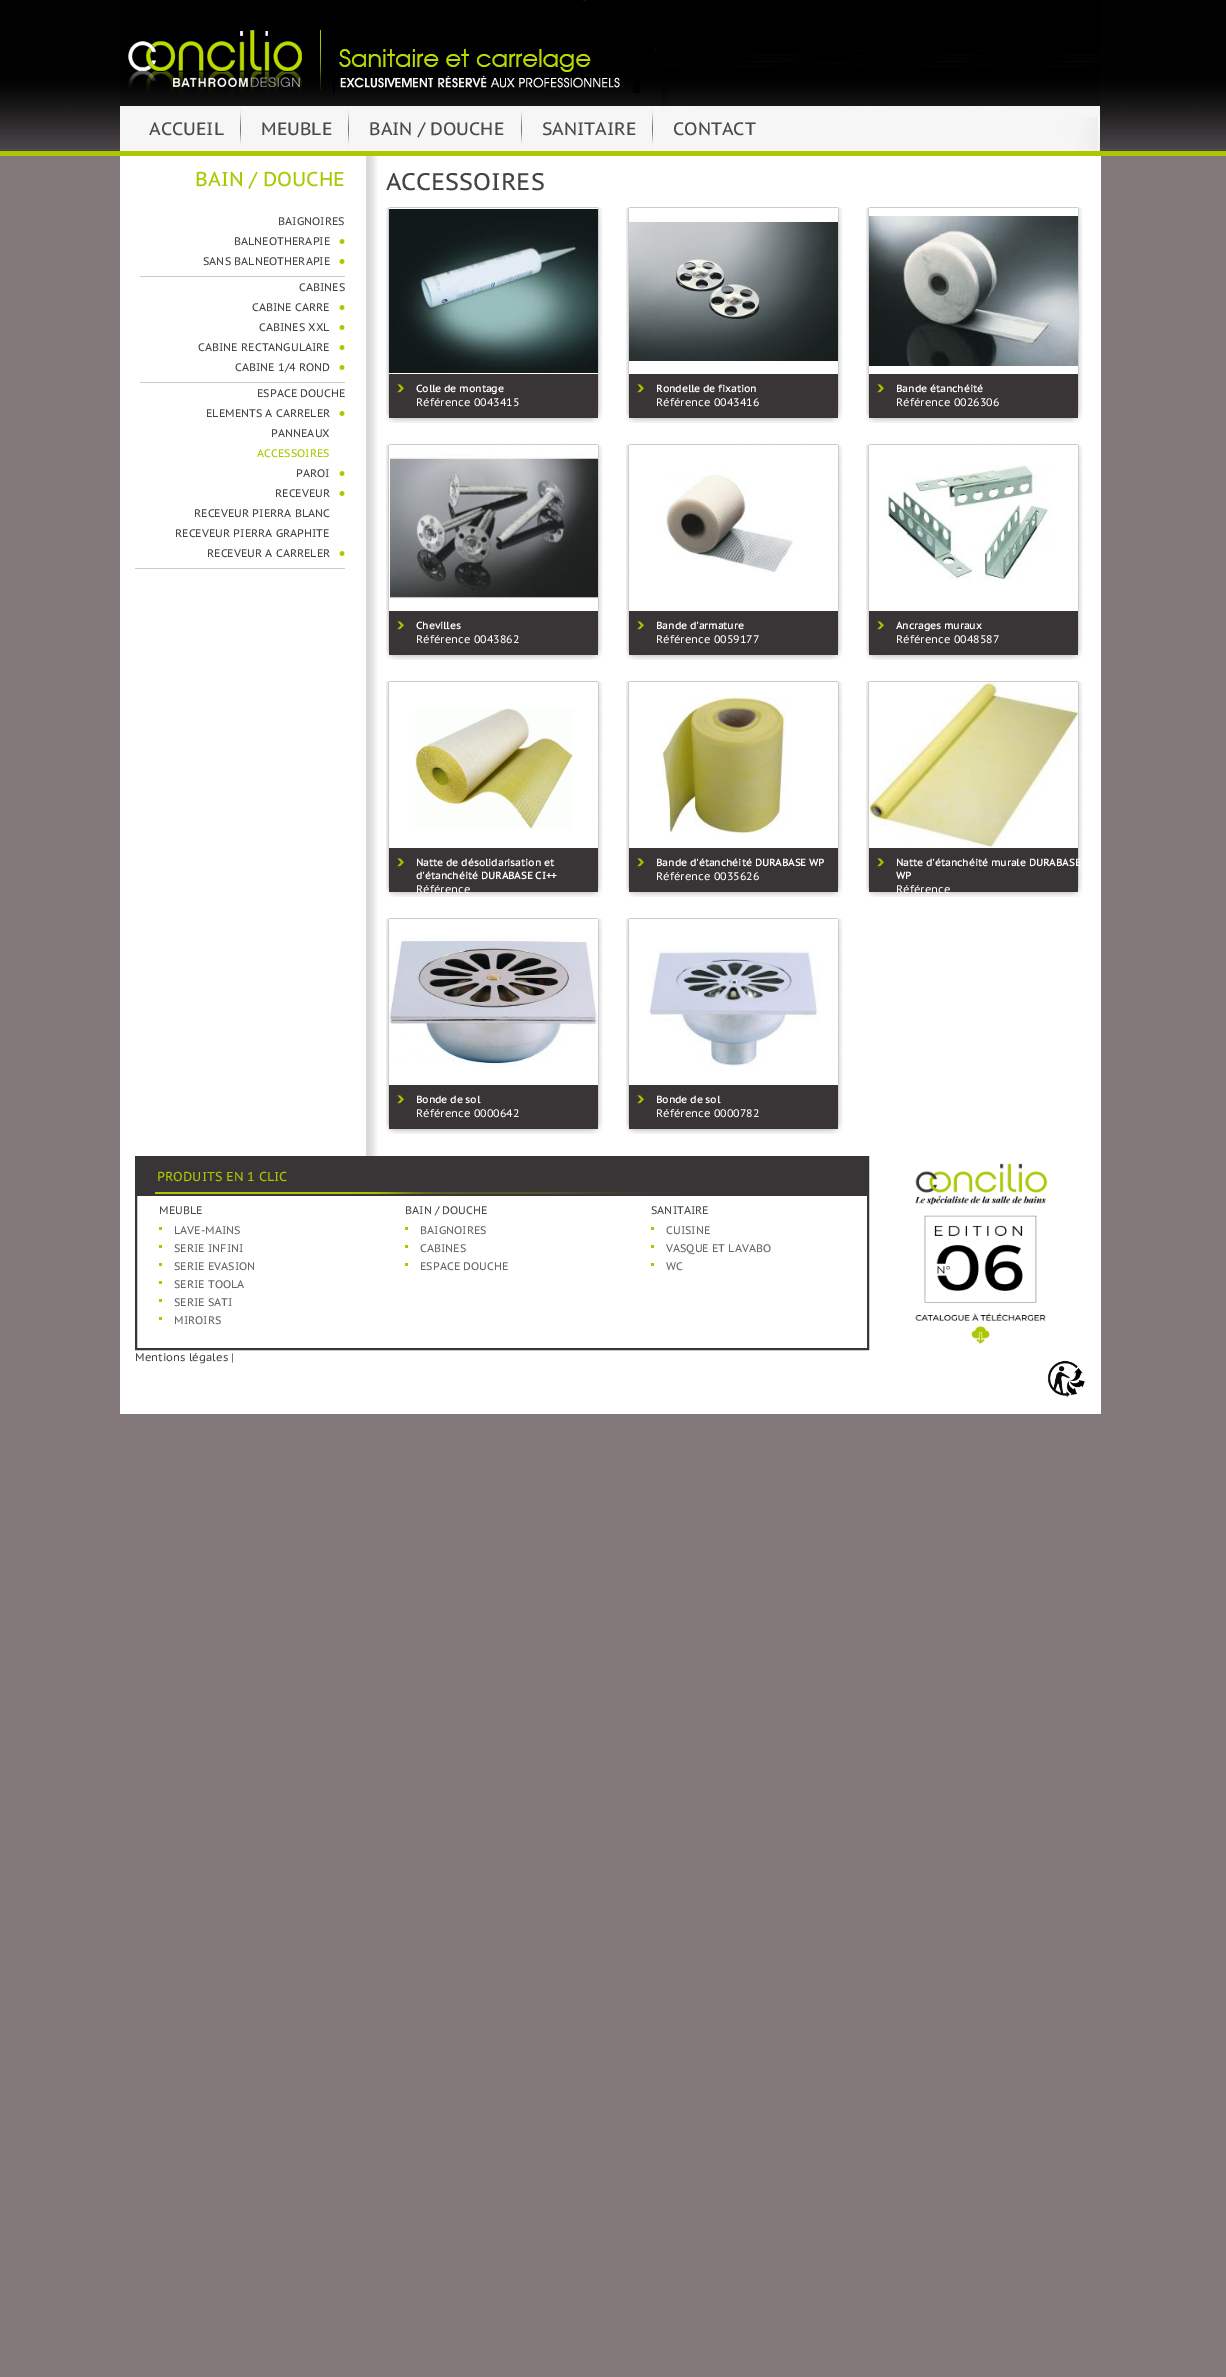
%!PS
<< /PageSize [1226 2377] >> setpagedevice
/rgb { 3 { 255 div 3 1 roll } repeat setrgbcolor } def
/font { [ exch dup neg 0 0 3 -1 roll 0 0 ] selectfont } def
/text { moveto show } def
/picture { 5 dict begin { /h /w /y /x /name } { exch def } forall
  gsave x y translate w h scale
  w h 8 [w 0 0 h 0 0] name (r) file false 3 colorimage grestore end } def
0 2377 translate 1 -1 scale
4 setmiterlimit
130 120 121 rgb
0 0 1226 2377 rectfill
(img_01.rgb) 0 0 1226 156 picture
(img_02.rgb) 120 0 980 151 picture
(img_03.rgb) 240 109 1 38 picture
(img_03.rgb) 348 109 1 38 picture
(img_03.rgb) 521 109 1 38 picture
(img_03.rgb) 652 109 1 38 picture
255 255 255 rgb
120 156 981 1258 rectfill
204 204 204 rgb
135 568 210 1 rectfill
(img_04.rgb) 339 239 6 5 picture
(img_04.rgb) 339 259 6 5 picture
140 276 205 1 rectfill
(img_04.rgb) 339 305 6 5 picture
(img_04.rgb) 339 325 6 5 picture
(img_04.rgb) 339 345 6 5 picture
(img_04.rgb) 339 365 6 5 picture
140 382 205 1 rectfill
(img_04.rgb) 339 411 6 5 picture
(img_04.rgb) 339 471 6 5 picture
(img_04.rgb) 339 491 6 5 picture
(img_04.rgb) 339 551 6 5 picture
(img_05.rgb) 366 156 12 1000 picture
(img_06.rgb) 386 207 217 216 picture
255 255 255 rgb
389 208 209 166 rectfill
(img_07.rgb) 389 209 209 164 picture
(img_06.rgb) 626 207 217 216 picture
629 208 209 166 rectfill
(img_08.rgb) 629 222 209 139 picture
(img_06.rgb) 866 207 217 216 picture
869 208 209 166 rectfill
(img_09.rgb) 869 216 209 150 picture
(img_06.rgb) 386 444 217 216 picture
389 445 209 166 rectfill
(img_10.rgb) 390 455 208 144 picture
(img_06.rgb) 626 444 217 216 picture
629 445 209 166 rectfill
(img_11.rgb) 660 471 133 102 picture
(img_06.rgb) 866 444 217 216 picture
869 445 209 166 rectfill
(img_12.rgb) 883 465 168 115 picture
(img_06.rgb) 386 681 217 216 picture
389 682 209 166 rectfill
(img_13.rgb) 415 708 158 121 picture
(img_06.rgb) 626 681 217 216 picture
629 682 209 166 rectfill
(img_14.rgb) 655 697 131 136 picture
(img_06.rgb) 866 681 217 216 picture
869 682 1 166 rectfill
(img_15.rgb) 870 682 208 166 picture
(img_06.rgb) 386 918 217 216 picture
389 919 209 166 rectfill
(img_16.rgb) 389 938 209 128 picture
(img_06.rgb) 626 918 217 216 picture
629 919 209 166 rectfill
(img_17.rgb) 648 948 171 119 picture
56 53 54 rgb
2 setlinewidth
136 1157 732 192 rectstroke
137 1158 730 38 rectfill
(img_18.rgb) 155 1192 524 2 picture
172 199 0 rgb
159 1227 3 3 rectfill
159 1245 3 3 rectfill
159 1263 3 3 rectfill
159 1281 3 3 rectfill
159 1299 3 3 rectfill
159 1317 3 3 rectfill
405 1227 3 3 rectfill
405 1245 3 3 rectfill
405 1263 3 3 rectfill
651 1227 3 3 rectfill
651 1245 3 3 rectfill
651 1263 3 3 rectfill
(img_19.rgb) 915 1163 133 181 picture
(img_20.rgb) 1047 1360 38 38 picture
/PTSansCaption-Regular 18 font
74 74 74 rgb
(ACCUEIL) 149 135 text
(MEUBLE) 261 135 text
(BAIN / DOUCHE) 369 135 text
(SANITAIRE) 542 135 text
(CONTACT) 673 135 text
/PTSansCaption-Regular 20 font
172 199 0 rgb
(BAIN / DOUCHE) 195 186 text
/PTSansCaption-Regular 11 font
68 68 68 rgb
(BAIGNOIRES) 278 225 text
(BALNEOTHERAPIE) 234 245 text
(SANS BALNEOTHERAPIE) 203 265 text
(CABINES) 299 291 text
(CABINE CARRE) 252 311 text
(CABINES XXL) 259 331 text
(CABINE RECTANGULAIRE) 198 351 text
(CABINE 1/4 ROND) 235 371 text
(ESPACE DOUCHE) 257 397 text
(ELEMENTS A CARRELER) 206 417 text
(PANNEAUX) 271 437 text
172 199 0 rgb
(ACCESSOIRES) 257 457 text
68 68 68 rgb
(PAROI) 296 477 text
(RECEVEUR) 275 497 text
(RECEVEUR PIERRA BLANC) 194 517 text
(RECEVEUR PIERRA GRAPHITE) 175 537 text
(RECEVEUR A CARRELER) 207 557 text
/PTSansCaption-Regular 24 font
(ACCESSOIRES) 386 190 text
/PTSansCaption-Bold 10 font
255 255 255 rgb
(Colle de montage) 416 392 text
/PTSansCaption-Regular 11 font
(Référence 0043415) 416 406 text
/PTSansCaption-Bold 10 font
(Rondelle de fixation) 656 392 text
/PTSansCaption-Regular 11 font
(Référence 0043416) 656 406 text
/PTSansCaption-Bold 10 font
(Bande étanchéité) 896 392 text
/PTSansCaption-Regular 11 font
(Référence 0026306) 896 406 text
/PTSansCaption-Bold 10 font
(Chevilles) 416 629 text
/PTSansCaption-Regular 11 font
(Référence 0043862) 416 643 text
/PTSansCaption-Bold 10 font
(Bande d'armature) 656 629 text
/PTSansCaption-Regular 11 font
(Référence 0059177) 656 643 text
/PTSansCaption-Bold 10 font
(Ancrages muraux) 896 629 text
/PTSansCaption-Regular 11 font
(Référence 0048587) 896 643 text
/PTSansCaption-Bold 10 font
(Natte de désolidarisation et) 416 866 text
(d'étanchéité DURABASE CI++) 416 879 text
/PTSansCaption-Regular 11 font
(Référence) 416 893 text
/PTSansCaption-Bold 10 font
(Bande d'étanchéité DURABASE WP) 656 866 text
/PTSansCaption-Regular 11 font
(Référence 0035626) 656 880 text
/PTSansCaption-Bold 10 font
(Natte d'étanchéité murale DURABASE) 896 866 text
(WP) 896 879 text
/PTSansCaption-Regular 11 font
(Référence) 896 893 text
/PTSansCaption-Bold 10 font
(Bonde de sol) 416 1103 text
/PTSansCaption-Regular 11 font
(Référence 0000642) 416 1117 text
/PTSansCaption-Bold 10 font
(Bonde de sol) 656 1103 text
/PTSansCaption-Regular 11 font
(Référence 0000782) 656 1117 text
/PTSansCaption-Regular 13 font
172 199 0 rgb
(PRODUITS EN 1 CLIC) 157 1181 text
/PTSansCaption-Regular 11 font
74 74 74 rgb
(MEUBLE) 159 1214 text
102 102 102 rgb
(LAVE-MAINS) 174 1234 text
(SERIE INFINI) 174 1252 text
(SERIE EVASION) 174 1270 text
(SERIE TOOLA) 174 1288 text
(SERIE SATI) 174 1306 text
(MIROIRS) 174 1324 text
74 74 74 rgb
(BAIN / DOUCHE) 405 1214 text
102 102 102 rgb
(BAIGNOIRES) 420 1234 text
(CABINES) 420 1252 text
(ESPACE DOUCHE) 420 1270 text
74 74 74 rgb
(SANITAIRE) 651 1214 text
102 102 102 rgb
(CUISINE) 666 1234 text
(VASQUE ET LAVABO) 666 1252 text
(WC) 666 1270 text
68 68 68 rgb
(Mentions légales |) 135 1361 text
showpage
